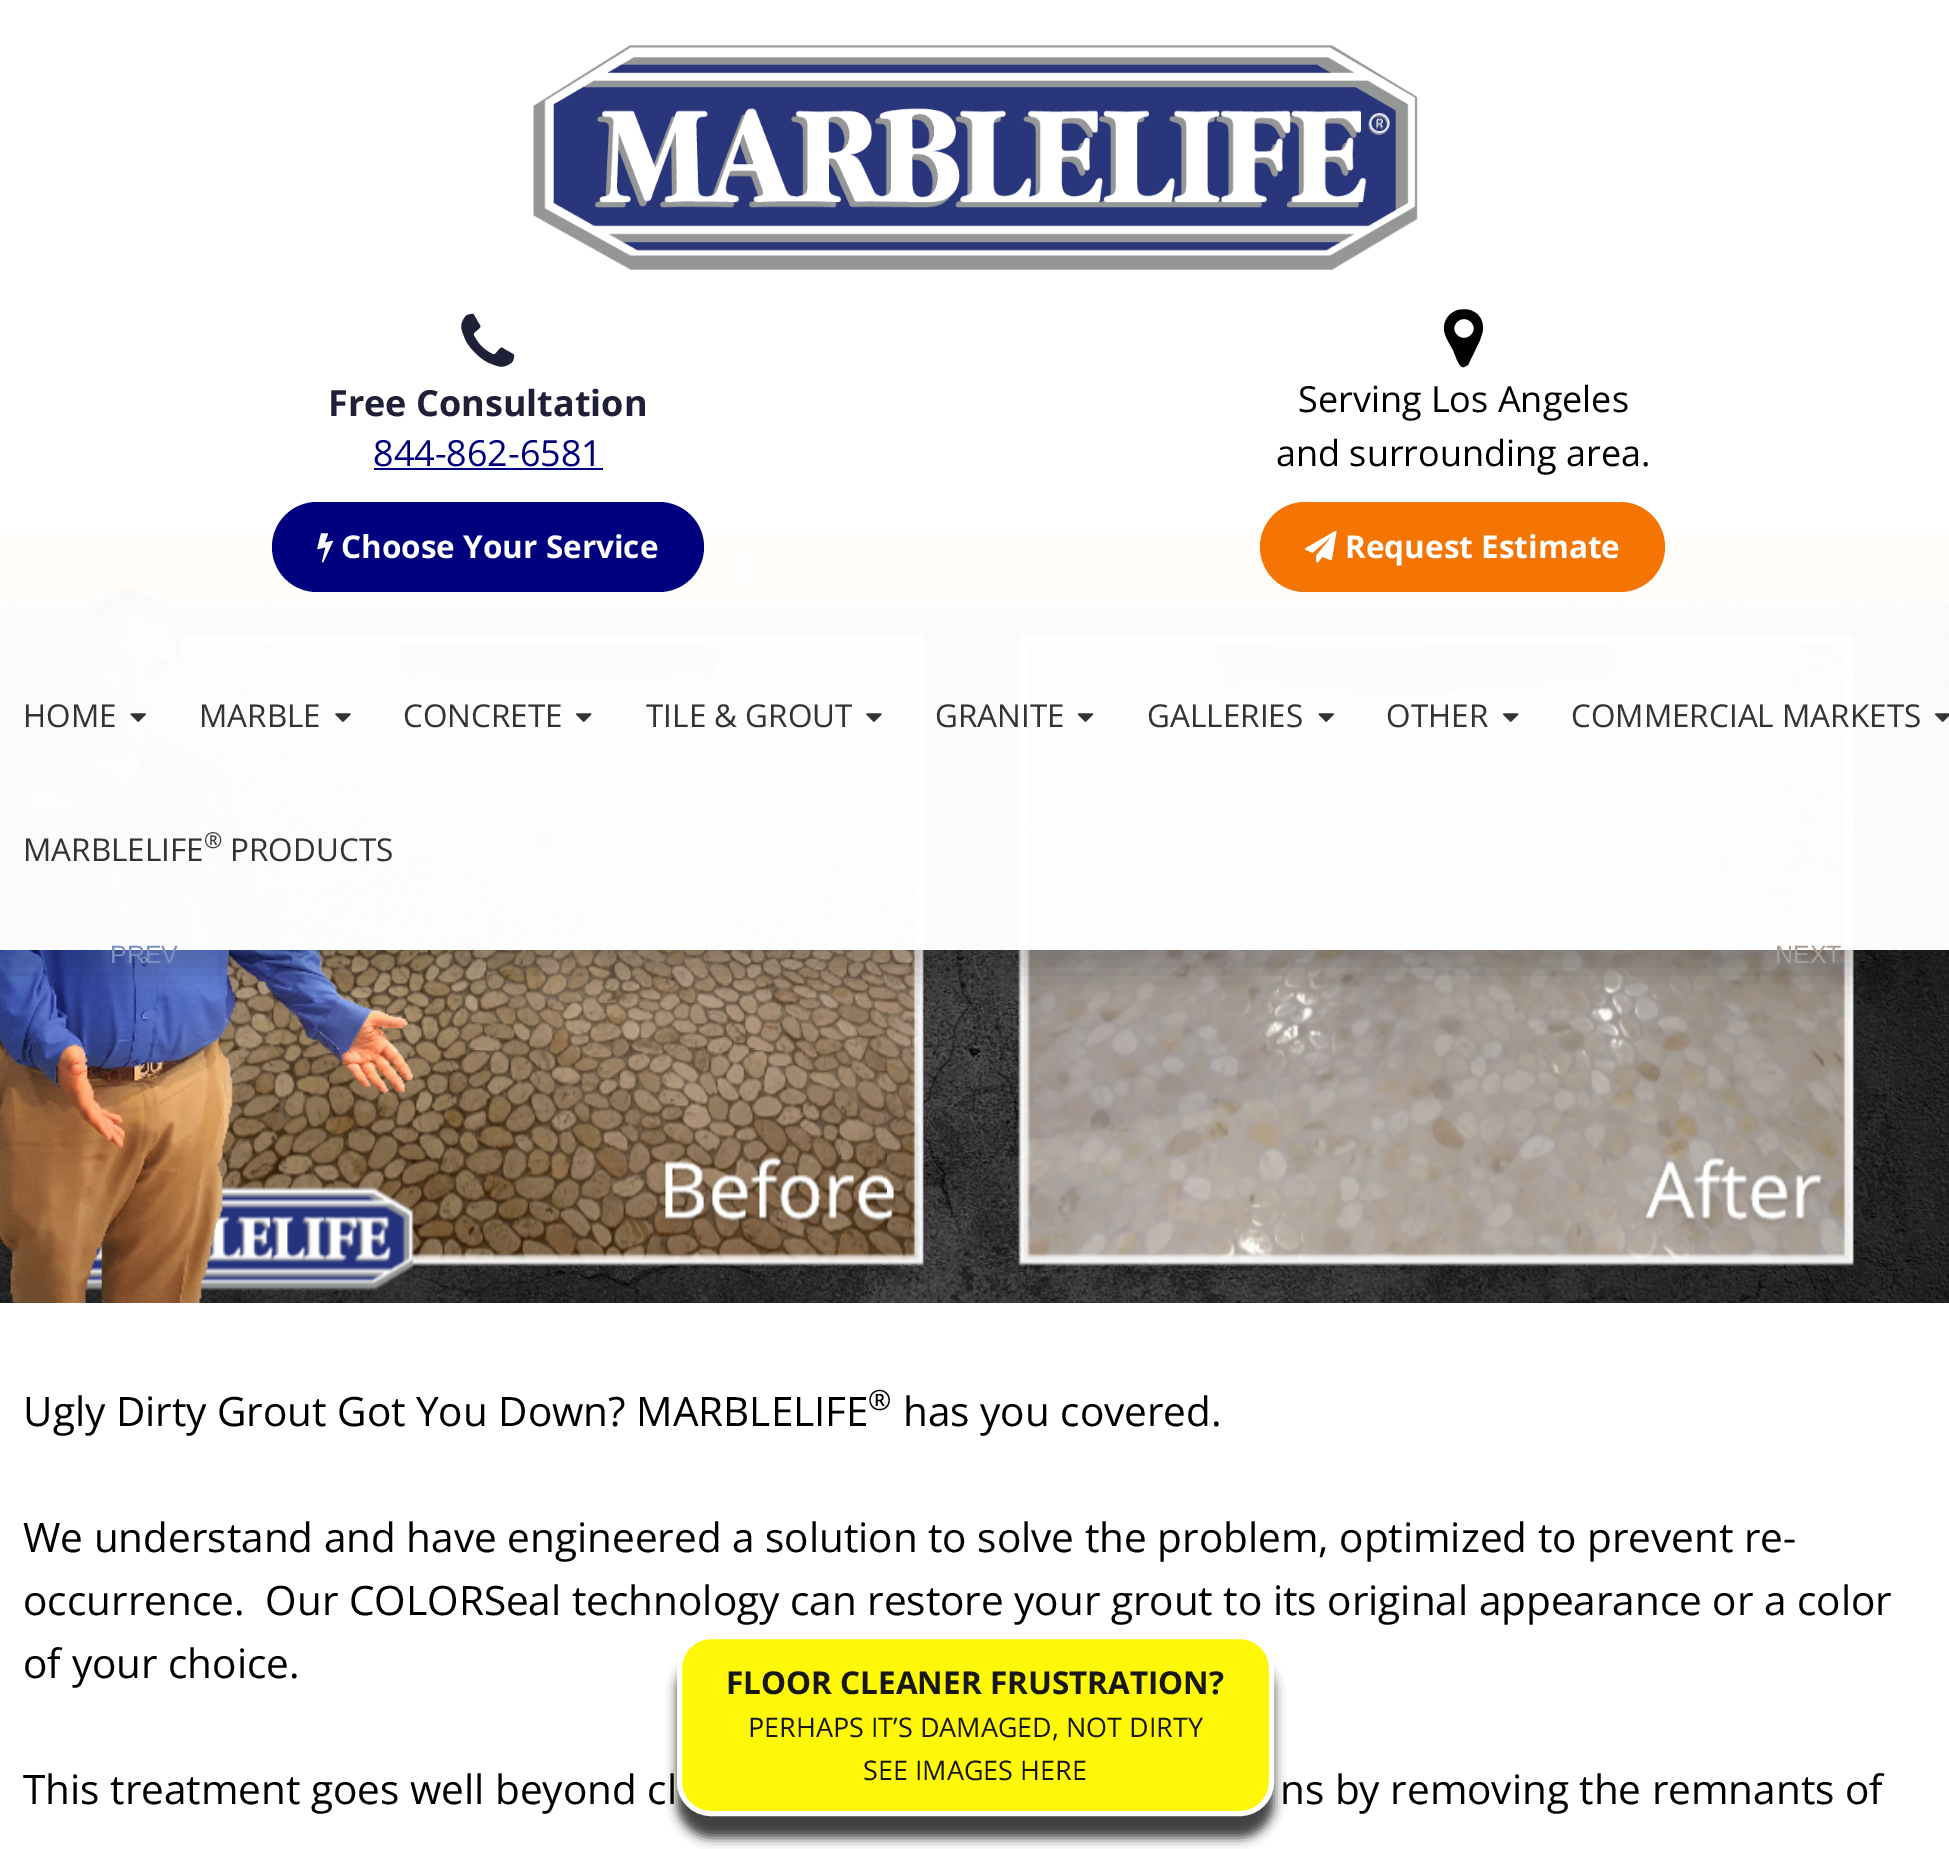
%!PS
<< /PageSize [1949 1849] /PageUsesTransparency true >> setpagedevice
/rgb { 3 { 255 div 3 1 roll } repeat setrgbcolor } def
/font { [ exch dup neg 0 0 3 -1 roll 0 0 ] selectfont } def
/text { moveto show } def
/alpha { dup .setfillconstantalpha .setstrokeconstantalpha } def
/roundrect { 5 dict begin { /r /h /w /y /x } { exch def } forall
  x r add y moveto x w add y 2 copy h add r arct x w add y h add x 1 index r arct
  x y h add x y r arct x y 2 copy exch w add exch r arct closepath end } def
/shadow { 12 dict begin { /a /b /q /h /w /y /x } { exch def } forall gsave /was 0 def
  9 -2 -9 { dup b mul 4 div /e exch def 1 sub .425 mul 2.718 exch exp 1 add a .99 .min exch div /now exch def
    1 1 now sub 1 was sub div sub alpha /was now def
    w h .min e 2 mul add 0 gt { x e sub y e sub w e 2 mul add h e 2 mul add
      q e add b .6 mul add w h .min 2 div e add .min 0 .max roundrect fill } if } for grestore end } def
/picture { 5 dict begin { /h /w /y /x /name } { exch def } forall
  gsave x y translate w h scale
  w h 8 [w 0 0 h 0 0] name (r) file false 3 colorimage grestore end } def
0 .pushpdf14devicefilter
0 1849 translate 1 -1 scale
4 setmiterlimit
255 255 255 rgb
0 0 1949 1849 rectfill
247 247 247 rgb
0 383 1949 150 rectfill
244 117 3 rgb
0 533 1949 72 rectfill
(img_01.rgb) 729 557 31 26 picture
247 247 247 rgb
0 605 1949 1 rectfill
(img_14.rgb) 0 605 1949 698 picture
(img_16.rgb) 85 634 1769 657 picture
(img_15.rgb) 0 587 413 716 picture
gsave
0 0 moveto 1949 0 rlineto 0 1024 rlineto -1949 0 rlineto closepath 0 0 moveto 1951 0 rlineto 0 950 rlineto -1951 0 rlineto closepath eoclip newpath
0 0 0 rgb
0 23 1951 949 0 17 0.2 shadow
grestore
0.98 alpha
255 255 255 rgb
0 383 1949 567 rectfill
1 alpha
(img_02.rgb) 533 45 885 225 picture
(img_03.rgb) 461 313 54 54 picture
0 0 126 rgb
374 468 229 2 rectfill
0 0 0 rgb
1471 335 moveto 9 -9 -5 -22 -14 -13 rcurveto -9 9 5 22 14 13 rcurveto closepath 1483 328 moveto 0 5 -2 8 -3 12 rcurveto -12 25 rlineto -4 2 rlineto -4 1 -5 -4 -7 -7 rcurveto -4 -10 rlineto -3 -6 -9 -14 -9 -22 rcurveto 1 -25 39 -25 39 0 rcurveto closepath fill
0 0 126 rgb
272 502 432 90 45 roundrect fill
(img_04.rgb) 317 533 16 30 picture
244 117 3 rgb
1260 502 405 90 45 roundrect fill
(img_05.rgb) 1305 531 32 32 picture
(img_06.rgb) 130 713 16 9 picture
(img_07.rgb) 335 713 16 9 picture
(img_08.rgb) 576 713 16 9 picture
(img_09.rgb) 866 713 16 9 picture
(img_10.rgb) 1077 713 17 9 picture
(img_11.rgb) 1318 713 16 9 picture
(img_12.rgb) 1503 713 16 9 picture
(img_13.rgb) 1935 713 14 9 picture
0 0 0 rgb
677 1656 597 182 34 5.5 0.75 shadow
255 247 8 rgb
679.5 1636.5 592 177 31.5 roundrect gsave fill grestore
255 255 255 rgb
5 setlinewidth
stroke
/OpenSans-Bold 36 font
31 31 55 rgb
(Free Consultation) 328 416 text
/OpenSans-Regular 36 font
0 0 126 rgb
(844-862-6581) 373 466 text
0 0 0 rgb
(Serving Los Angeles) 1298 412 text
(and surrounding area.) 1276 466 text
/OpenSans-Bold 31.5 font
255 255 255 rgb
(Choose Your Service) 341 558 text
(Request Estimate) 1345 558 text
/OpenSans-Regular 31.5 font
51 51 51 rgb
(HOME) 23 727 text
(MARBLE) 199 727 text
(CONCRETE) 403 727 text
(TILE & GROUT) 646 727 text
(GRANITE) 935 727 text
(GALLERIES) 1147 727 text
(OTHER) 1386 727 text
(COMMERCIAL MARKETS) 1571 727 text
(MARBLELIFE) 23 861 text
/OpenSans-Regular 22 font
(®) 204 848 text
/OpenSans-Regular 31.5 font
(PRODUCTS) 230 861 text
/LiberationSans-Regular 25 font
125 142 193 rgb
(PREV) 110 963 text
164 159 155 rgb
(NEXT) 1775 963 text
/OpenSans-Regular 40.5 font
0 0 0 rgb
(Ugly Dirty Grout Got You Down? MARBLELIFE) 23 1426 text
/OpenSans-Regular 28 font
(®) 868 1410 text
/OpenSans-Regular 40.5 font
(has you covered.) 903 1426 text
(We understand and have engineered a solution to solve the problem, optimized to prevent re-) 23 1552 text
(occurrence.  Our COLORSeal technology can restore your grout to its original appearance or a color) 23 1615 text
(of your choice.) 23 1678 text
(This treatment goes well beyond cl) 23 1804 text
(ns by removing the remnants of) 1280 1804 text
/OpenSans-Bold 31.5 font
23 23 23 rgb
(FLOOR CLEANER FRUSTRATION?) 726 1694 text
/OpenSans-Regular 27 font
(PERHAPS IT’S DAMAGED, NOT DIRTY) 748 1737 text
(SEE IMAGES HERE) 863 1780 text
.poppdf14devicefilter showpage
